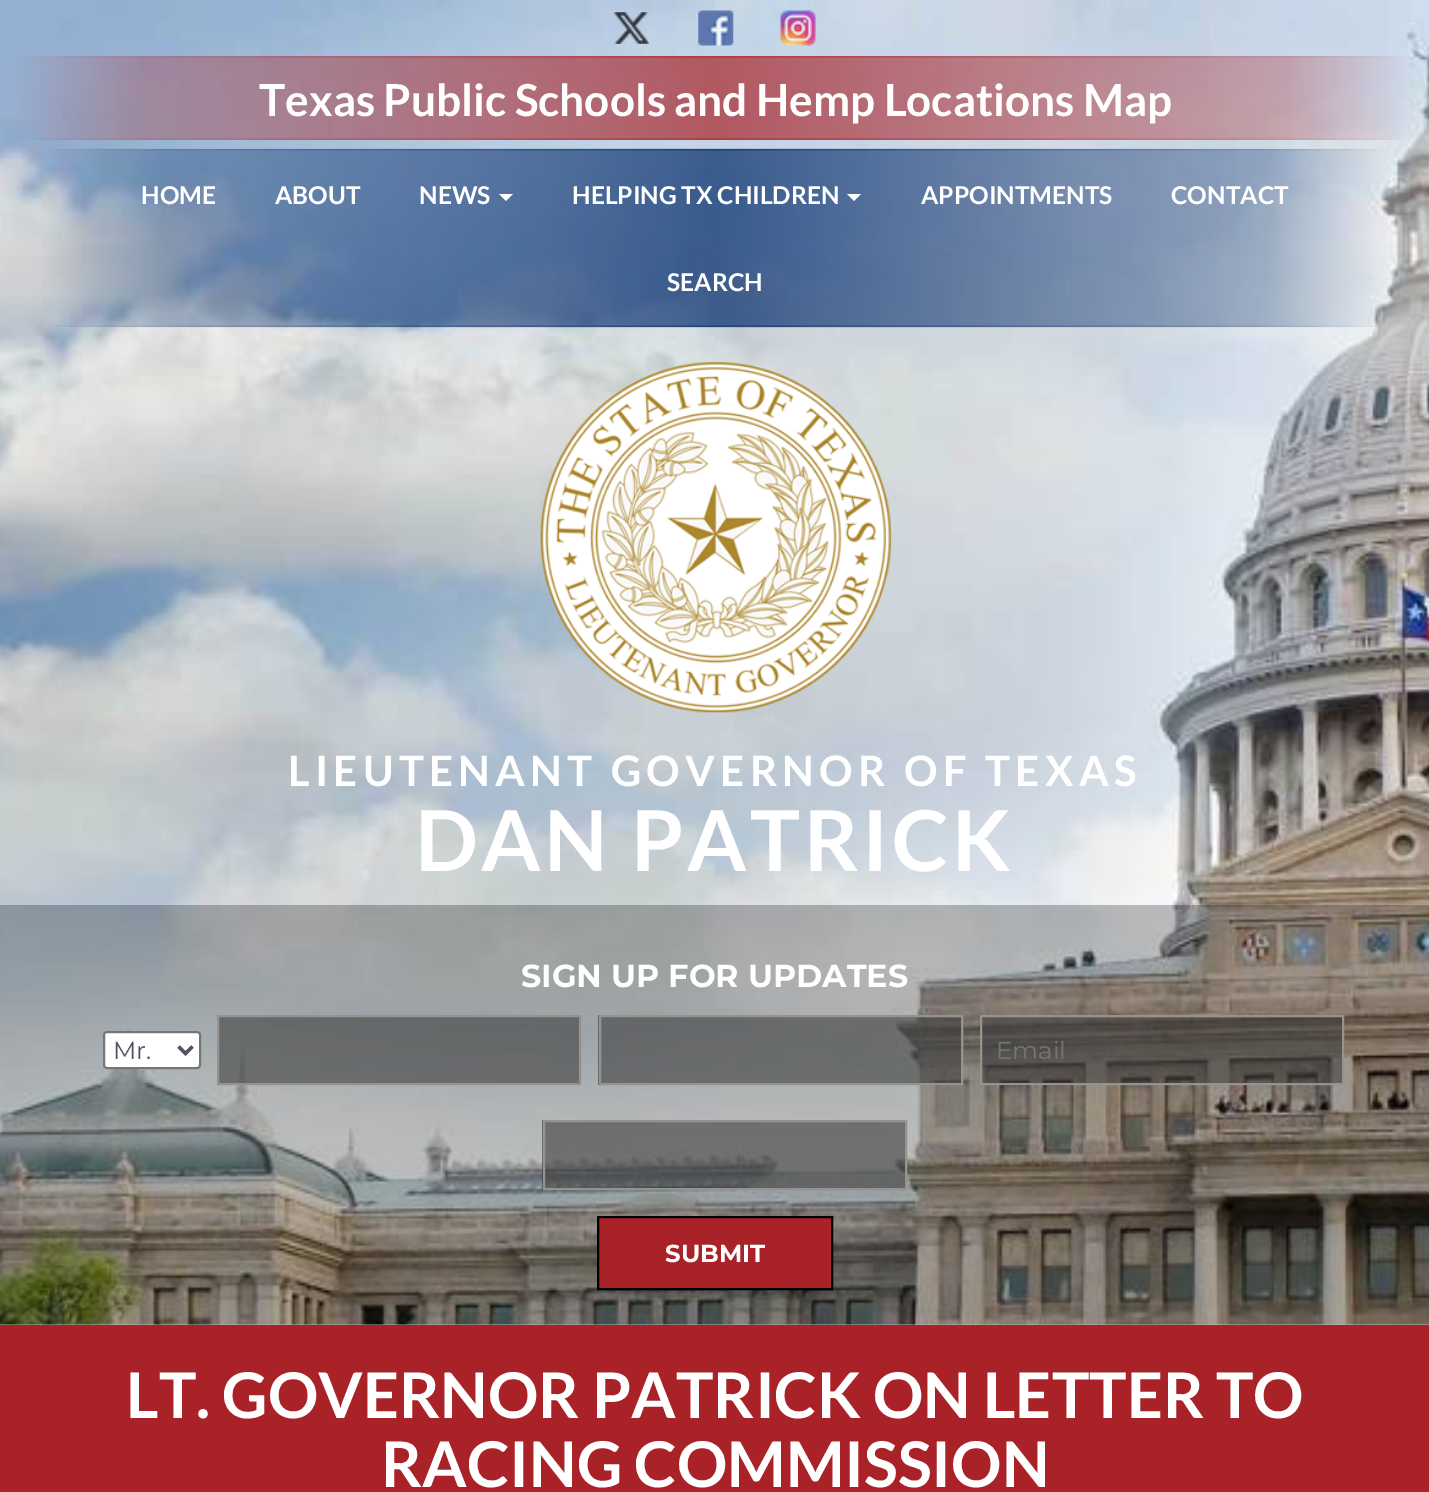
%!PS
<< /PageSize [1429 1492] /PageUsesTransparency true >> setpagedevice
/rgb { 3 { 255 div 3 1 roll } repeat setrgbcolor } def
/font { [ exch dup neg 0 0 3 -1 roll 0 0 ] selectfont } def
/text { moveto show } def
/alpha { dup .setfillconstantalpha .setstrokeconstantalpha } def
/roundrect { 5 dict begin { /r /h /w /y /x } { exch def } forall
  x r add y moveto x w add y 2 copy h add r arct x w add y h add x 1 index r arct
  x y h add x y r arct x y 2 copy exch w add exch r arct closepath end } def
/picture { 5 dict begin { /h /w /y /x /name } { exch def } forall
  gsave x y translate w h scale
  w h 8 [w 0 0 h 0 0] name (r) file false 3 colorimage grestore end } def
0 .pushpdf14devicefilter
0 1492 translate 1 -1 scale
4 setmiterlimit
255 255 255 rgb
0 0 1429 1492 rectfill
(img_01.rgb) 0 0 1429 1325 picture
(img_02.rgb) 614 12 36 32 picture
(img_03.rgb) 698 10 36 36 picture
(img_04.rgb) 780 10 36 36 picture
(img_05.rgb) 29 56 1372 84 picture
(img_06.rgb) 56 148 1320 180 picture
499 194 moveto 14 0 rlineto -7 7 rlineto closepath fill
847 194 moveto 14 0 rlineto -7 7 rlineto closepath fill
(img_07.rgb) 540 362 351 351 picture
0.25 alpha
0 0 0 rgb
0 905 1429 420 rectfill
1 alpha
255 255 255 rgb
104 1032 96 36 3 roundrect gsave fill grestore
118 118 118 rgb
2 setlinewidth
stroke
78 84 96 rgb
3.5 setlinewidth
178.5 1046.5 moveto 7 7 rlineto 7 -7 rlineto stroke
0.6 alpha
62 62 62 rgb
218 1016 moveto 362 0 rlineto 0 68 rlineto -362 0 rlineto closepath fill
1 alpha
151 146 140 rgb
2 setlinewidth
218 1016 moveto 362 0 rlineto 0 68 rlineto -362 0 rlineto closepath stroke
0.6 alpha
62 62 62 rgb
598 1015 363 70 rectfill
1 alpha
151 146 140 rgb
600 1016 362 68 rectstroke
0.6 alpha
62 62 62 rgb
981 1016 moveto 362 0 rlineto 0 68 rlineto -362 0 rlineto closepath fill
1 alpha
151 146 140 rgb
981 1016 moveto 362 0 rlineto 0 68 rlineto -362 0 rlineto closepath stroke
0.6 alpha
62 62 62 rgb
542 1120 363 70 rectfill
1 alpha
151 146 140 rgb
544 1121 362 68 rectstroke
168 34 39 rgb
598 1217 moveto 234 0 rlineto 0 72 rlineto -234 0 rlineto closepath gsave fill grestore
0 0 0 rgb
stroke
168 34 39 rgb
0 1325 1429 167 rectfill
/Lato-Bold 44.1 font
255 255 255 rgb
(Texas Public Schools and Hemp Locations Map) 259 116 text
/Lato-Bold 24.5 font
(HOME) 141 204 text
(ABOUT) 275 204 text
(NEWS) 419 204 text
(HELPING TX CHILDREN) 572 204 text
(APPOINTMENTS) 921 204 text
(CONTACT) 1171 204 text
(SEARCH) 667 291 text
/Lato-Bold 42 font
288 786 moveto 5.25 0 (LIEUTENANT GOVERNOR OF TEXAS) ashow
/Lato-Bold 84 font
415 871 moveto 3.5 0 (DAN PATRICK) ashow
/Montserrat-Bold 31.8 font
(SIGN UP FOR UPDATES) 521 987 text
/Montserrat-Regular 24.5 font
78 84 96 rgb
(Mr.) 113 1059 text
117 117 117 rgb
(Email) 996 1059 text
/Montserrat-Bold 24.5 font
255 255 255 rgb
(SUBMIT) 665 1262 text
/Lato-Bold 63 font
(LT. GOVERNOR PATRICK ON LETTER TO) 126 1418 text
(RACING COMMISSION) 381 1487 text
.poppdf14devicefilter showpage
